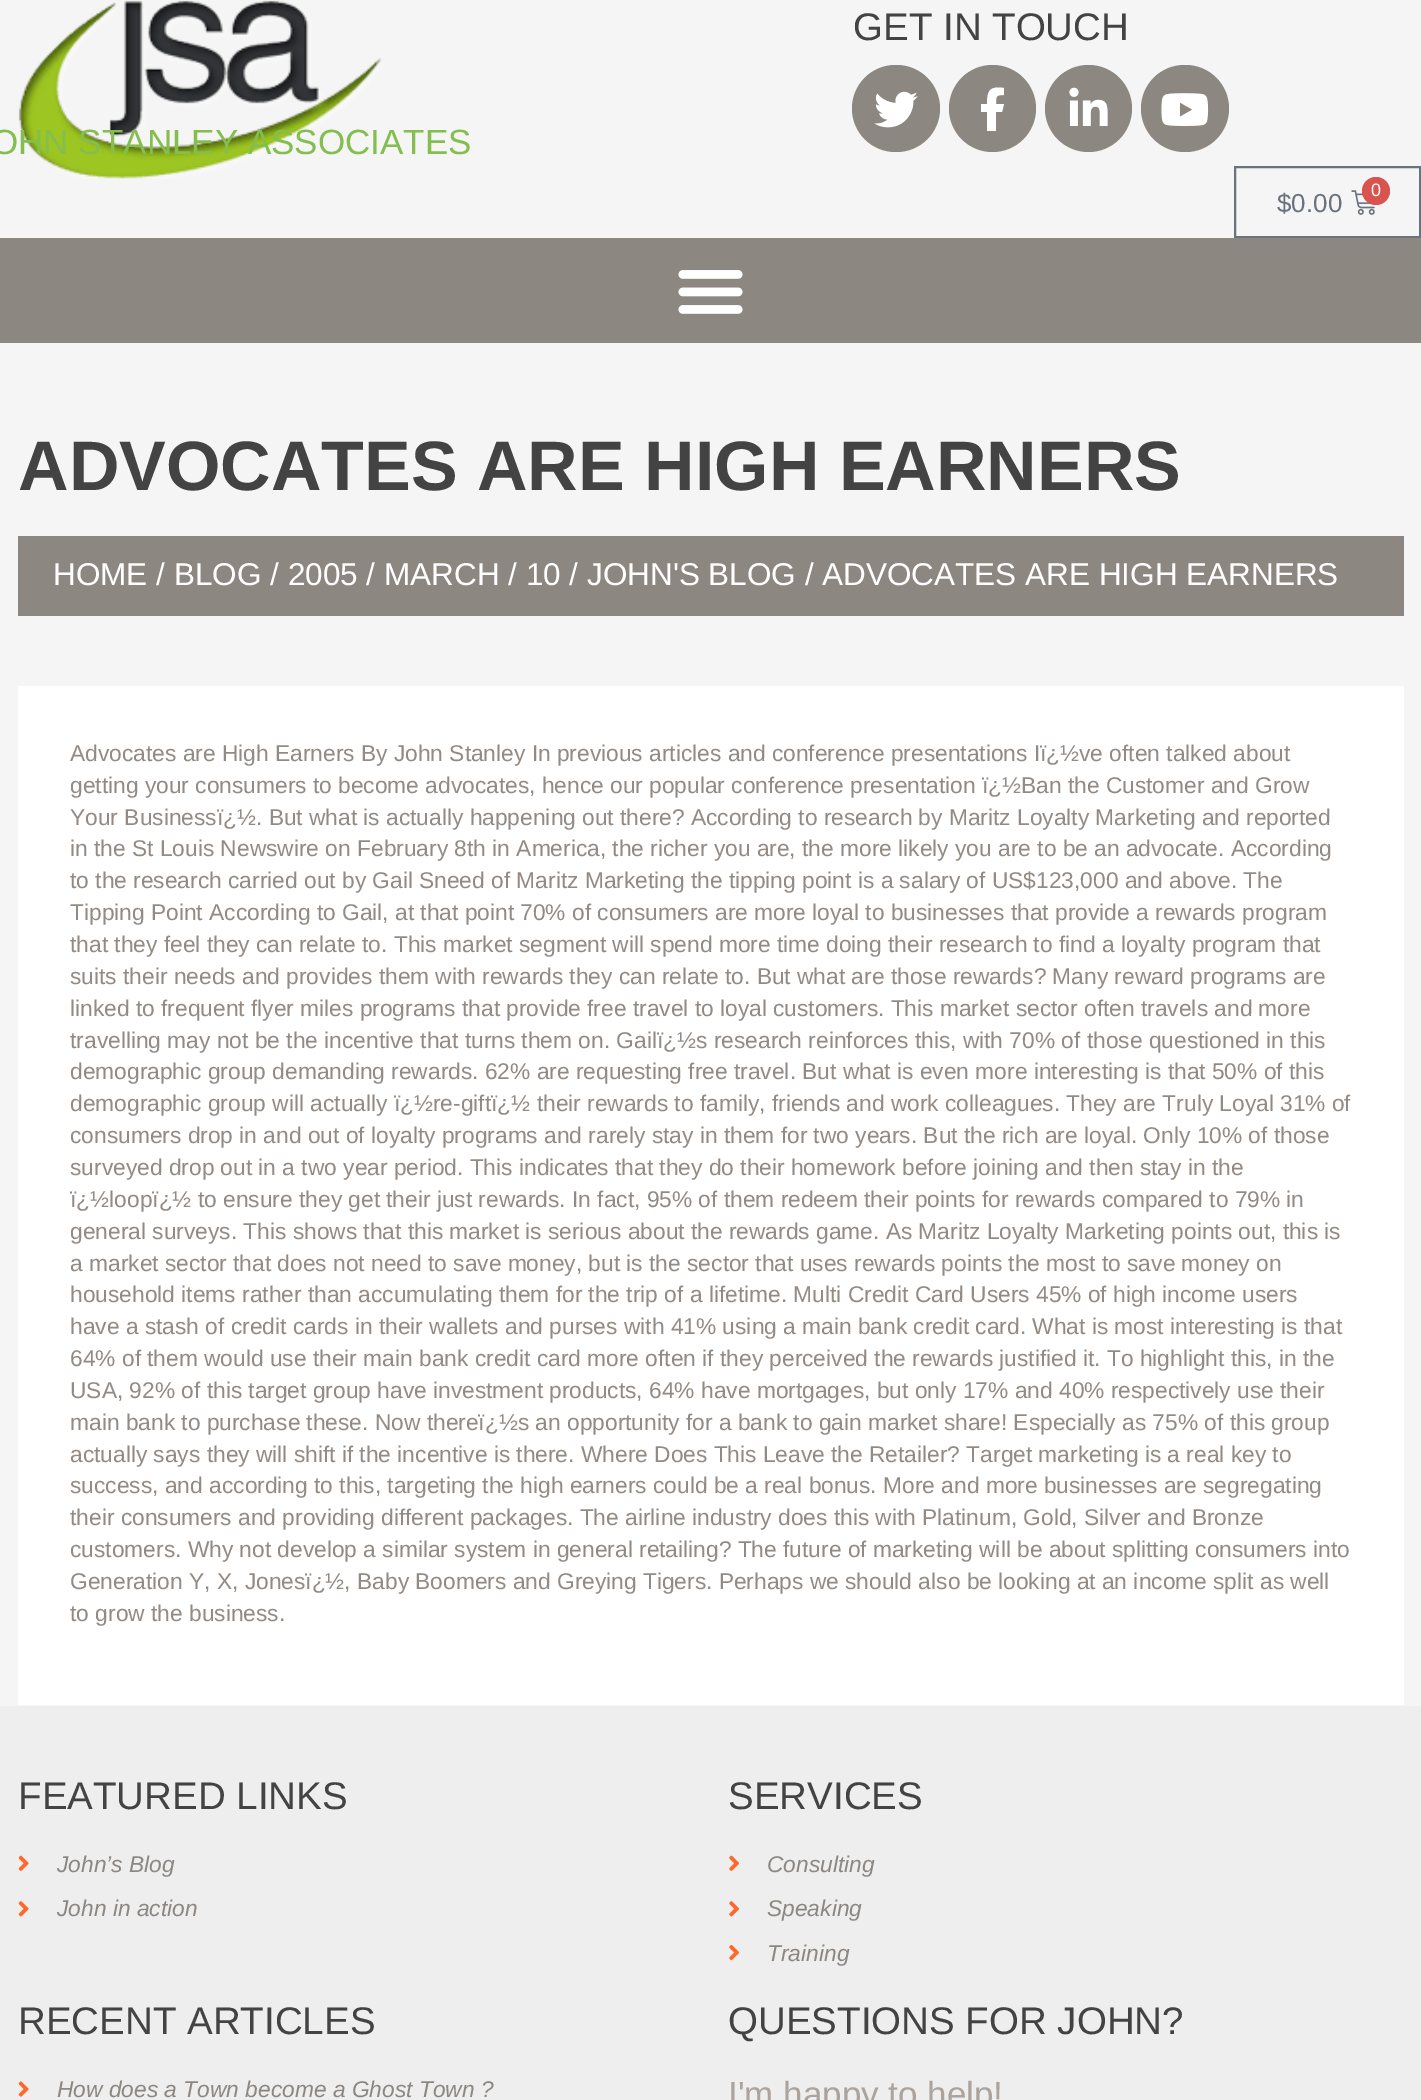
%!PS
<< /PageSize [1421 2100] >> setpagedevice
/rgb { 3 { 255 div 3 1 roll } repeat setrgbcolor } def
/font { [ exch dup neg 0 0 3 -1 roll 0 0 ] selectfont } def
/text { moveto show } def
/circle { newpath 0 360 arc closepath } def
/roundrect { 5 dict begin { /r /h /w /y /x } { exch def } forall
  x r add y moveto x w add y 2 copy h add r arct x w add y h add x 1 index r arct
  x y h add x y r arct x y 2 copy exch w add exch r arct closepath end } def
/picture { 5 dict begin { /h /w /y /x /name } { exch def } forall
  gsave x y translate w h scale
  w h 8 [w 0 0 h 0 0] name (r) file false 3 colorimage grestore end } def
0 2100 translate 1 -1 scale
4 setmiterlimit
245 245 245 rgb
0 0 1421 2100 rectfill
(img_01.rgb) 18 0 364 179 picture
140 135 129 rgb
852 65 88 87 43.5 roundrect fill
(img_02.rgb) 874 91 44 37 picture
992.5 108.5 43.5 circle fill
255 255 255 rgb
1002 112 moveto -6 0 rlineto 0 19 rlineto -9 0 rlineto 0 -19 rlineto -6 0 rlineto 0 -8 rlineto 6 0 rlineto 0 -14 3 -18 17 -16 rcurveto 0 7 rlineto -8 0 -8 1 -8 9 rcurveto 8 0 rlineto closepath fill
140 135 129 rgb
1088.5 108.5 43.5 circle fill
(img_03.rgb) 1069 87 39 39 picture
1141 65 88 87 43.5 roundrect fill
(img_04.rgb) 1161 93 48 33 picture
105 114 125 rgb
2 setlinewidth
1235 167 185 70 rectstroke
(img_05.rgb) 1351 190 24 25 picture
217 83 79 rgb
1376 191 14 circle fill
140 135 129 rgb
0 238 1421 105 rectfill
(img_06.rgb) 678 270 65 44 picture
141 135 130 rgb
18 536 1386 80 rectfill
255 255 255 rgb
18 686 1386 1019 rectfill
238 238 238 rgb
0 1706 1421 394 rectfill
(img_07.rgb) 18 1855 11 16 picture
(img_08.rgb) 18 1901 11 16 picture
(img_09.rgb) 729 1855 10 16 picture
(img_10.rgb) 729 1901 10 16 picture
(img_11.rgb) 729 1944 10 17 picture
(img_12.rgb) 18 2081 11 16 picture
/LiberationSans-Regular 35 font
132 190 79 rgb
(OHN STANLEY ASSOCIATES) -9 154 text
/LiberationSans-Regular 38.5 font
68 67 67 rgb
(GET IN TOUCH) 853 40 text
/LiberationSans-Regular 18 font
255 255 255 rgb
(0) 1371 196 text
/LiberationSans-Regular 26 font
105 114 125 rgb
($0.00) 1277 212 text
/LiberationSans-Bold 70 font
68 67 67 rgb
(ADVOCATES ARE HIGH EARNERS) 18 490 text
/LiberationSans-Regular 31.5 font
255 255 255 rgb
(HOME / BLOG / 2005 / MARCH / 10 / JOHN'S BLOG / ADVOCATES ARE HIGH EARNERS) 53 585 text
/LiberationSans-Regular 22.75 font
146 139 133 rgb
(Advocates are High Earners By John Stanley In previous articles and conference presentations Iï¿½ve often talked about) 70 761 text
(getting your consumers to become advocates, hence our popular conference presentation ï¿½Ban the Customer and Grow) 70 793 text
(Your Businessï¿½. But what is actually happening out there? According to research by Maritz Loyalty Marketing and reported) 70 825 text
(in the St Louis Newswire on February 8th in America, the richer you are, the more likely you are to be an advocate. According) 70 856 text
(to the research carried out by Gail Sneed of Maritz Marketing the tipping point is a salary of US$123,000 and above. The) 70 888 text
(Tipping Point According to Gail, at that point 70% of consumers are more loyal to businesses that provide a rewards program) 70 920 text
(that they feel they can relate to. This market segment will spend more time doing their research to find a loyalty program that) 70 952 text
(suits their needs and provides them with rewards they can relate to. But what are those rewards? Many reward programs are) 70 984 text
(linked to frequent flyer miles programs that provide free travel to loyal customers. This market sector often travels and more) 70 1016 text
(travelling may not be the incentive that turns them on. Gailï¿½s research reinforces this, with 70% of those questioned in this) 70 1048 text
(demographic group demanding rewards. 62% are requesting free travel. But what is even more interesting is that 50% of this) 70 1079 text
(demographic group will actually ï¿½re-giftï¿½ their rewards to family, friends and work colleagues. They are Truly Loyal 31% of) 70 1111 text
(consumers drop in and out of loyalty programs and rarely stay in them for two years. But the rich are loyal. Only 10% of those) 70 1143 text
(surveyed drop out in a two year period. This indicates that they do their homework before joining and then stay in the) 70 1175 text
(ï¿½loopï¿½ to ensure they get their just rewards. In fact, 95% of them redeem their points for rewards compared to 79% in) 70 1207 text
(general surveys. This shows that this market is serious about the rewards game. As Maritz Loyalty Marketing points out, this is) 70 1239 text
(a market sector that does not need to save money, but is the sector that uses rewards points the most to save money on) 70 1271 text
(household items rather than accumulating them for the trip of a lifetime. Multi Credit Card Users 45% of high income users) 70 1302 text
(have a stash of credit cards in their wallets and purses with 41% using a main bank credit card. What is most interesting is that) 70 1334 text
(64% of them would use their main bank credit card more often if they perceived the rewards justified it. To highlight this, in the) 70 1366 text
(USA, 92% of this target group have investment products, 64% have mortgages, but only 17% and 40% respectively use their) 70 1398 text
(main bank to purchase these. Now thereï¿½s an opportunity for a bank to gain market share! Especially as 75% of this group) 70 1430 text
(actually says they will shift if the incentive is there. Where Does This Leave the Retailer? Target marketing is a real key to) 70 1462 text
(success, and according to this, targeting the high earners could be a real bonus. More and more businesses are segregating) 70 1493 text
(their consumers and providing different packages. The airline industry does this with Platinum, Gold, Silver and Bronze) 70 1525 text
(customers. Why not develop a similar system in general retailing? The future of marketing will be about splitting consumers into) 70 1557 text
(Generation Y, X, Jonesï¿½, Baby Boomers and Greying Tigers. Perhaps we should also be looking at an income split as well) 70 1589 text
(to grow the business.) 70 1621 text
/LiberationSans-Regular 38.5 font
68 67 67 rgb
(FEATURED LINKS) 18 1809 text
/LiberationSans-Italic 22.75 font
140 135 129 rgb
(John’s Blog) 57 1872 text
(John in action) 57 1916 text
/LiberationSans-Regular 38.5 font
68 67 67 rgb
(SERVICES) 728 1809 text
/LiberationSans-Italic 22.75 font
140 135 129 rgb
(Consulting) 767 1872 text
(Speaking) 767 1916 text
(Training) 767 1961 text
/LiberationSans-Regular 38.5 font
68 67 67 rgb
(RECENT ARTICLES) 18 2034 text
/LiberationSans-Italic 22.75 font
140 135 129 rgb
(How does a Town become a Ghost Town ?) 57 2097 text
/LiberationSans-Regular 38.5 font
68 67 67 rgb
(QUESTIONS FOR JOHN?) 728 2034 text
/LiberationSans-Regular 35 font
172 163 157 rgb
(I'm happy to help!) 728 2106 text
showpage
